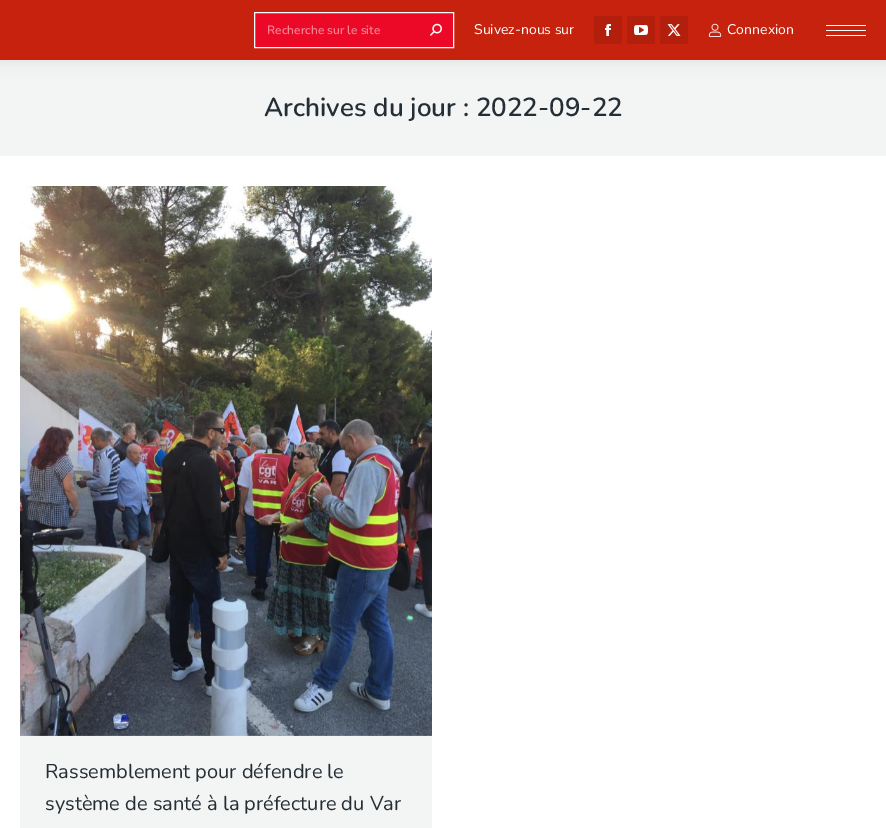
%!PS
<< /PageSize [886 828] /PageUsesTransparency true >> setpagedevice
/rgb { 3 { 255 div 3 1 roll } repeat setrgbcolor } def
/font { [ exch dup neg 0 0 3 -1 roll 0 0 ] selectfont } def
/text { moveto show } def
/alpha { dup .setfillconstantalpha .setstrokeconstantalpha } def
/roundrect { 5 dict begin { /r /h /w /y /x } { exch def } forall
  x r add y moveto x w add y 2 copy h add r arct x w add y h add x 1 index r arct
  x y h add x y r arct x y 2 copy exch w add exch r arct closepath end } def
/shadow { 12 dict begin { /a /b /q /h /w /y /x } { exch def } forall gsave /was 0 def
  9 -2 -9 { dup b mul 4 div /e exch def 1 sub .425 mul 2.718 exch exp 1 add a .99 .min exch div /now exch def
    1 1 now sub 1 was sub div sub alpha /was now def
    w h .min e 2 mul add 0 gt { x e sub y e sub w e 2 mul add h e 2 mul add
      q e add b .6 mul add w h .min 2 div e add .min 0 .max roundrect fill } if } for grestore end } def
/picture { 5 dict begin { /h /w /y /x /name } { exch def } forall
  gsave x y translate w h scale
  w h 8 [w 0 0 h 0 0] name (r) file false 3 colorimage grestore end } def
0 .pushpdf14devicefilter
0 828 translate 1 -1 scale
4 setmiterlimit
255 255 255 rgb
0 0 886 828 rectfill
243 244 244 rgb
0 60 886 96 rectfill
0 0 0 rgb
-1 -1 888 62 0 7.5 0.07 shadow
199 34 14 rgb
0 0 886 60 rectfill
236 9 39 rgb
254.5 12.5 moveto 199 0 rlineto 0 35 rlineto -199 0 rlineto closepath gsave fill grestore
255 255 255 rgb
stroke
(img_01.rgb) 430 23 12 13 picture
179 31 13 rgb
594 16 28 28 2 roundrect fill
(img_02.rgb) 605 24 6 12 picture
627 16 28 28 2 roundrect fill
(img_03.rgb) 634 25 14 10 picture
660 16 28 28 2 roundrect fill
(img_04.rgb) 667 24 14 12 picture
(img_05.rgb) 708 23 14 14 picture
255 255 255 rgb
826 25 40 1 rectfill
826 30 40 1 rectfill
826 35 40 1 rectfill
243 244 244 rgb
20 735 412 93 rectfill
(img_06.rgb) 20 186 412 550 picture
/Nunito-SemiBold 12 font
246 132 147 rgb
(Recherche sur le site) 267 34 text
/Nunito-Regular 14 font
255 255 255 rgb
(Suivez-nous sur) 474 34 text
(Connexion) 727 34 text
/Nunito-SemiBold 26 font
36 46 53 rgb
(Archives du jour : 2022-09-22) 264 116 text
/Nunito-Regular 20 font
(Rassemblement pour défendre le) 45 778 text
(système de santé à la préfecture du Var) 45 810 text
.poppdf14devicefilter showpage
